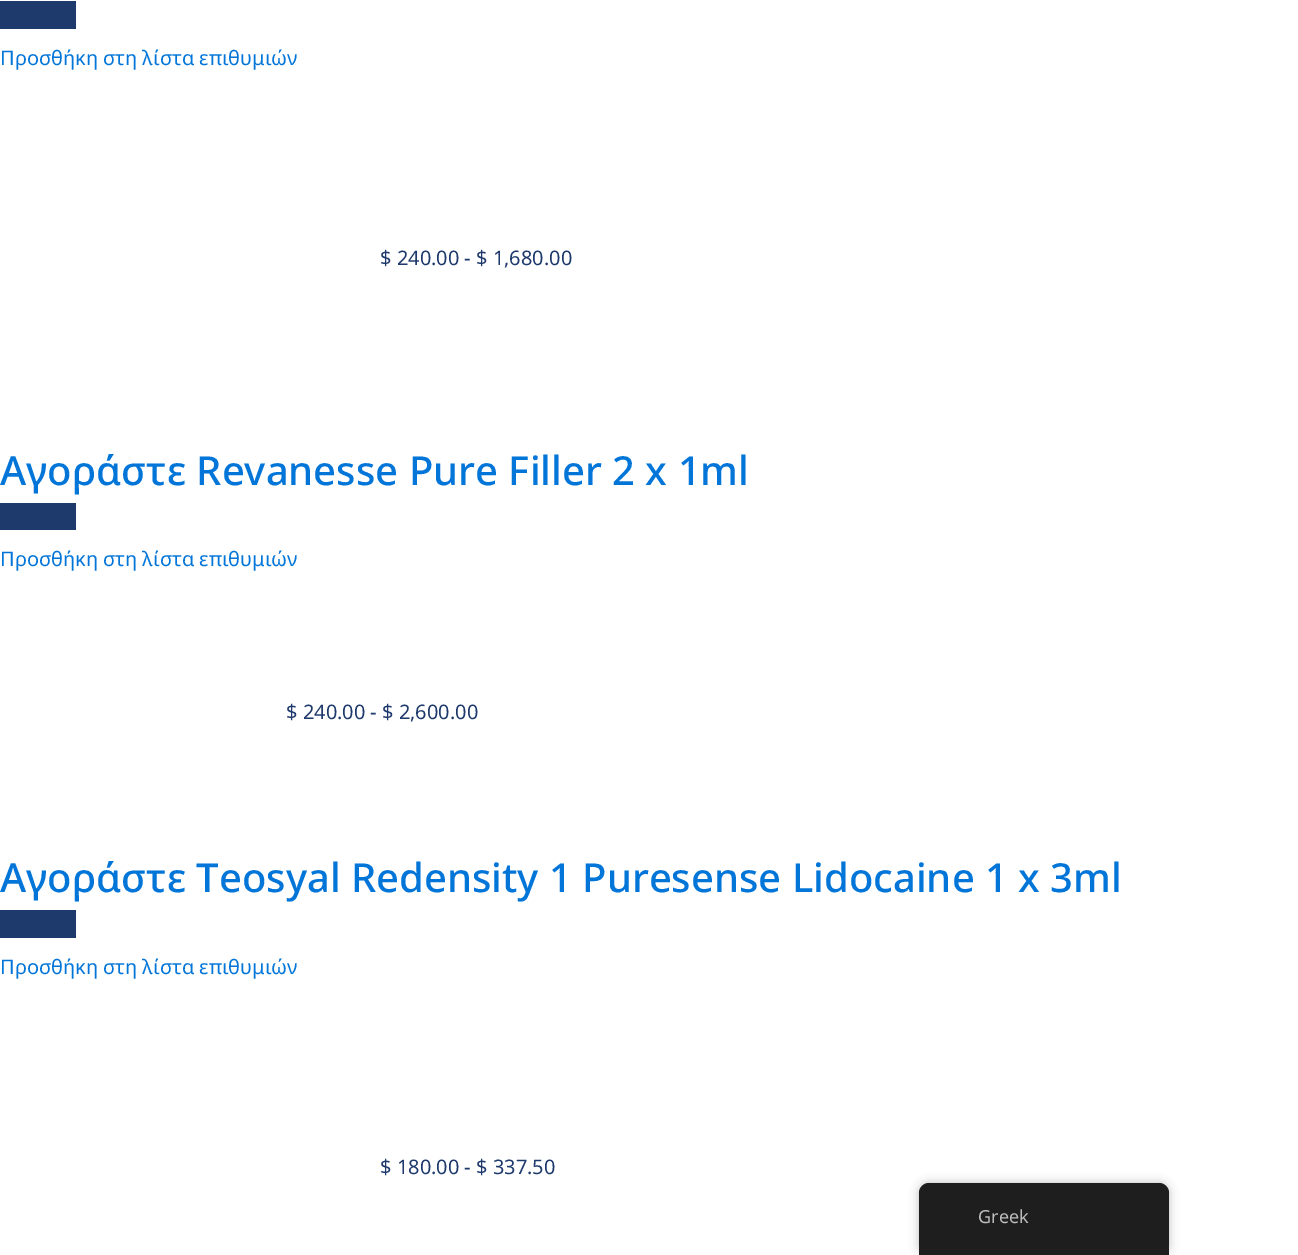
%!PS
<< /PageSize [1298 1255] /PageUsesTransparency true >> setpagedevice
/rgb { 3 { 255 div 3 1 roll } repeat setrgbcolor } def
/font { [ exch dup neg 0 0 3 -1 roll 0 0 ] selectfont } def
/text { moveto show } def
/alpha { dup .setfillconstantalpha .setstrokeconstantalpha } def
/roundrect { 5 dict begin { /r /h /w /y /x } { exch def } forall
  x r add y moveto x w add y 2 copy h add r arct x w add y h add x 1 index r arct
  x y h add x y r arct x y 2 copy exch w add exch r arct closepath end } def
/shadow { 12 dict begin { /a /b /q /h /w /y /x } { exch def } forall gsave /was 0 def
  9 -2 -9 { dup b mul 4 div /e exch def 1 sub .425 mul 2.718 exch exp 1 add a .99 .min exch div /now exch def
    1 1 now sub 1 was sub div sub alpha /was now def
    w h .min e 2 mul add 0 gt { x e sub y e sub w e 2 mul add h e 2 mul add
      q e add b .6 mul add w h .min 2 div e add .min 0 .max roundrect fill } if } for grestore end } def
0 .pushpdf14devicefilter
0 1255 translate 1 -1 scale
4 setmiterlimit
255 255 255 rgb
0 0 1298 1255 rectfill
30 57 108 rgb
0 1 76 28 rectfill
0 503 76 27 rectfill
0 910 76 28 rectfill
0 0 0 rgb
919 1183 250 72 10 5 0.25 shadow
30 30 30 rgb
929 1183 moveto 230 0 rlineto 5.5 0 10 4.5 10 10 rcurveto 0 62 rlineto -250 0 rlineto 0 -62 rlineto 0 -5.5 4.5 -10 10 -10 rcurveto closepath fill
/NotoSans-Regular 20 font
2 117 216 rgb
(Προσθήκη στη λίστα επιθυμιών) 0 65 text
30 57 108 rgb
($ 240.00 - $ 1,680.00) 380 265 text
/NotoSans-Medium 40 font
2 117 216 rgb
(Αγοράστε Revanesse Pure Filler 2 x 1ml) 0 485 text
/NotoSans-Regular 20 font
(Προσθήκη στη λίστα επιθυμιών) 0 566 text
30 57 108 rgb
($ 240.00 - $ 2,600.00) 286 719 text
/NotoSans-Medium 40 font
2 117 216 rgb
(Αγοράστε Teosyal Redensity 1 Puresense Lidocaine 1 x 3ml) 0 892 text
/NotoSans-Regular 20 font
(Προσθήκη στη λίστα επιθυμιών) 0 974 text
30 57 108 rgb
($ 180.00 - $ 337.50) 380 1174 text
/NotoSans-Regular 18 font
189 189 189 rgb
(Greek) 978 1223 text
.poppdf14devicefilter showpage
